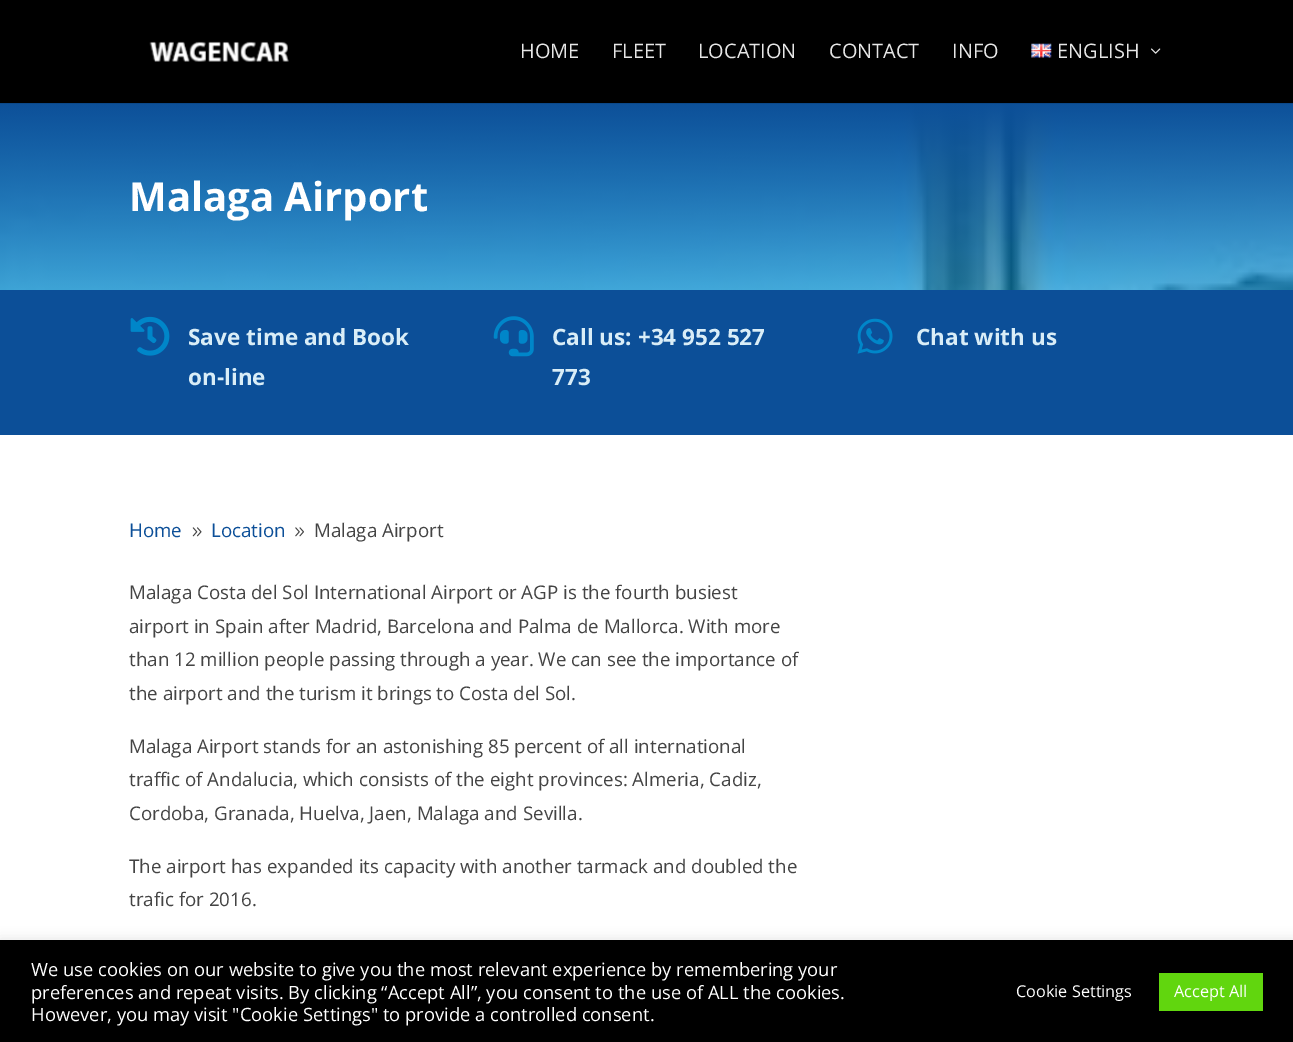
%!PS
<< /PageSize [1293 1042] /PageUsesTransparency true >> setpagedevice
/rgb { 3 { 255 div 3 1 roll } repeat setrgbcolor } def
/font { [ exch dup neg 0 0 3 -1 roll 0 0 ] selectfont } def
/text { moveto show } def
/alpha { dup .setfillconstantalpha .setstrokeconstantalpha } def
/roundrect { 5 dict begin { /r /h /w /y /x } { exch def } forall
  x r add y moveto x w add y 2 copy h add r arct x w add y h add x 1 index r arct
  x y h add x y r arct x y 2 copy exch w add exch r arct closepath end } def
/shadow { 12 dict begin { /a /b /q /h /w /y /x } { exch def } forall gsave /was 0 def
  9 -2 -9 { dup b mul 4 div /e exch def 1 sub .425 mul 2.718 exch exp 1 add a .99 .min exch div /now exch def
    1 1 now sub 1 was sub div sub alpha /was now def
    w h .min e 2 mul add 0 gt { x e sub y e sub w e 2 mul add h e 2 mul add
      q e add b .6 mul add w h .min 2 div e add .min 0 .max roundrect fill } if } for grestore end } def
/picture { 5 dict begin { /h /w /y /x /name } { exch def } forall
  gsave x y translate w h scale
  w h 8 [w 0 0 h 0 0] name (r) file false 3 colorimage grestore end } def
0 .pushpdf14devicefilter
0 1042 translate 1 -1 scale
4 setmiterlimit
255 255 255 rgb
0 0 1293 1042 rectfill
11 72 137 rgb
0 102 moveto 0 2 rlineto 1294 0 rlineto 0 -103 rlineto 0 101 rlineto closepath fill
0 0 0 rgb
0 0 1293 103 rectfill
(img_01.rgb) 149 41 140 21 picture
(img_02.rgb) 1031 43 21 15 picture
(img_03.rgb) 1151 48 10 6 picture
(img_04.rgb) 0 104 1293 186 picture
12 79 152 rgb
0 290 1293 145 rectfill
(img_05.rgb) 130 316 40 40 picture
(img_06.rgb) 493 316 41 41 picture
(img_07.rgb) 857 318 36 36 picture
(img_08.rgb) 192 527 10 10 picture
(img_09.rgb) 295 527 9 10 picture
172 171 171 rgb
0 939 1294 102 0 6 0.3 shadow
0 0 0 rgb
0 940 1293 102 rectfill
97 214 14 rgb
1159 973 104 38 rectfill
/OpenSans-Regular 20 font
230 230 230 rgb
(HOME) 520 58 text
(FLEET) 612 58 text
(LOCATION) 698 58 text
(CONTACT) 829 58 text
(INFO) 952 58 text
(ENGLISH) 1057 58 text
/OpenSans-Bold 40 font
255 255 255 rgb
(Malaga Airport) 129 211 text
/OpenSans-Bold 22.5 font
217 237 247 rgb
(Save time and Book) 188 345 text
(on-line) 188 385 text
(Call us: +34 952 527) 552 345 text
(773) 552 385 text
(Chat with us) 916 345 text
/OpenSans-Regular 18.75 font
12 79 152 rgb
(Home) 129 537 text
(Location) 211 537 text
68 68 68 rgb
(Malaga Airport) 314 537 text
(Malaga Costa del Sol International Airport or AGP is the fourth busiest) 129 599 text
(airport in Spain after Madrid, Barcelona and Palma de Mallorca. With more) 129 633 text
(than 12 million people passing through a year. We can see the importance of) 129 666 text
(the airport and the turism it brings to Costa del Sol.) 129 700 text
(Malaga Airport stands for an astonishing 85 percent of all international) 129 753 text
(traffic of Andalucia, which consists of the eight provinces: Almeria, Cadiz,) 129 786 text
(Cordoba, Granada, Huelva, Jaen, Malaga and Sevilla.) 129 820 text
(The airport has expanded its capacity with another tarmack and doubled the) 129 873 text
(trafic for 2016.) 129 906 text
/OpenSans-Regular 18.35 font
255 255 255 rgb
(We use cookies on our website to give you the most relevant experience by remembering your) 31 976 text
(preferences and repeat visits. By clicking “Accept All”, you consent to the use of ALL the cookies.) 31 999 text
(However, you may visit "Cookie Settings" to provide a controlled consent.) 31 1021 text
/OpenSans-Regular 16.25 font
(Cookie Settings) 1016 997 text
(Accept All) 1174 997 text
.poppdf14devicefilter showpage
